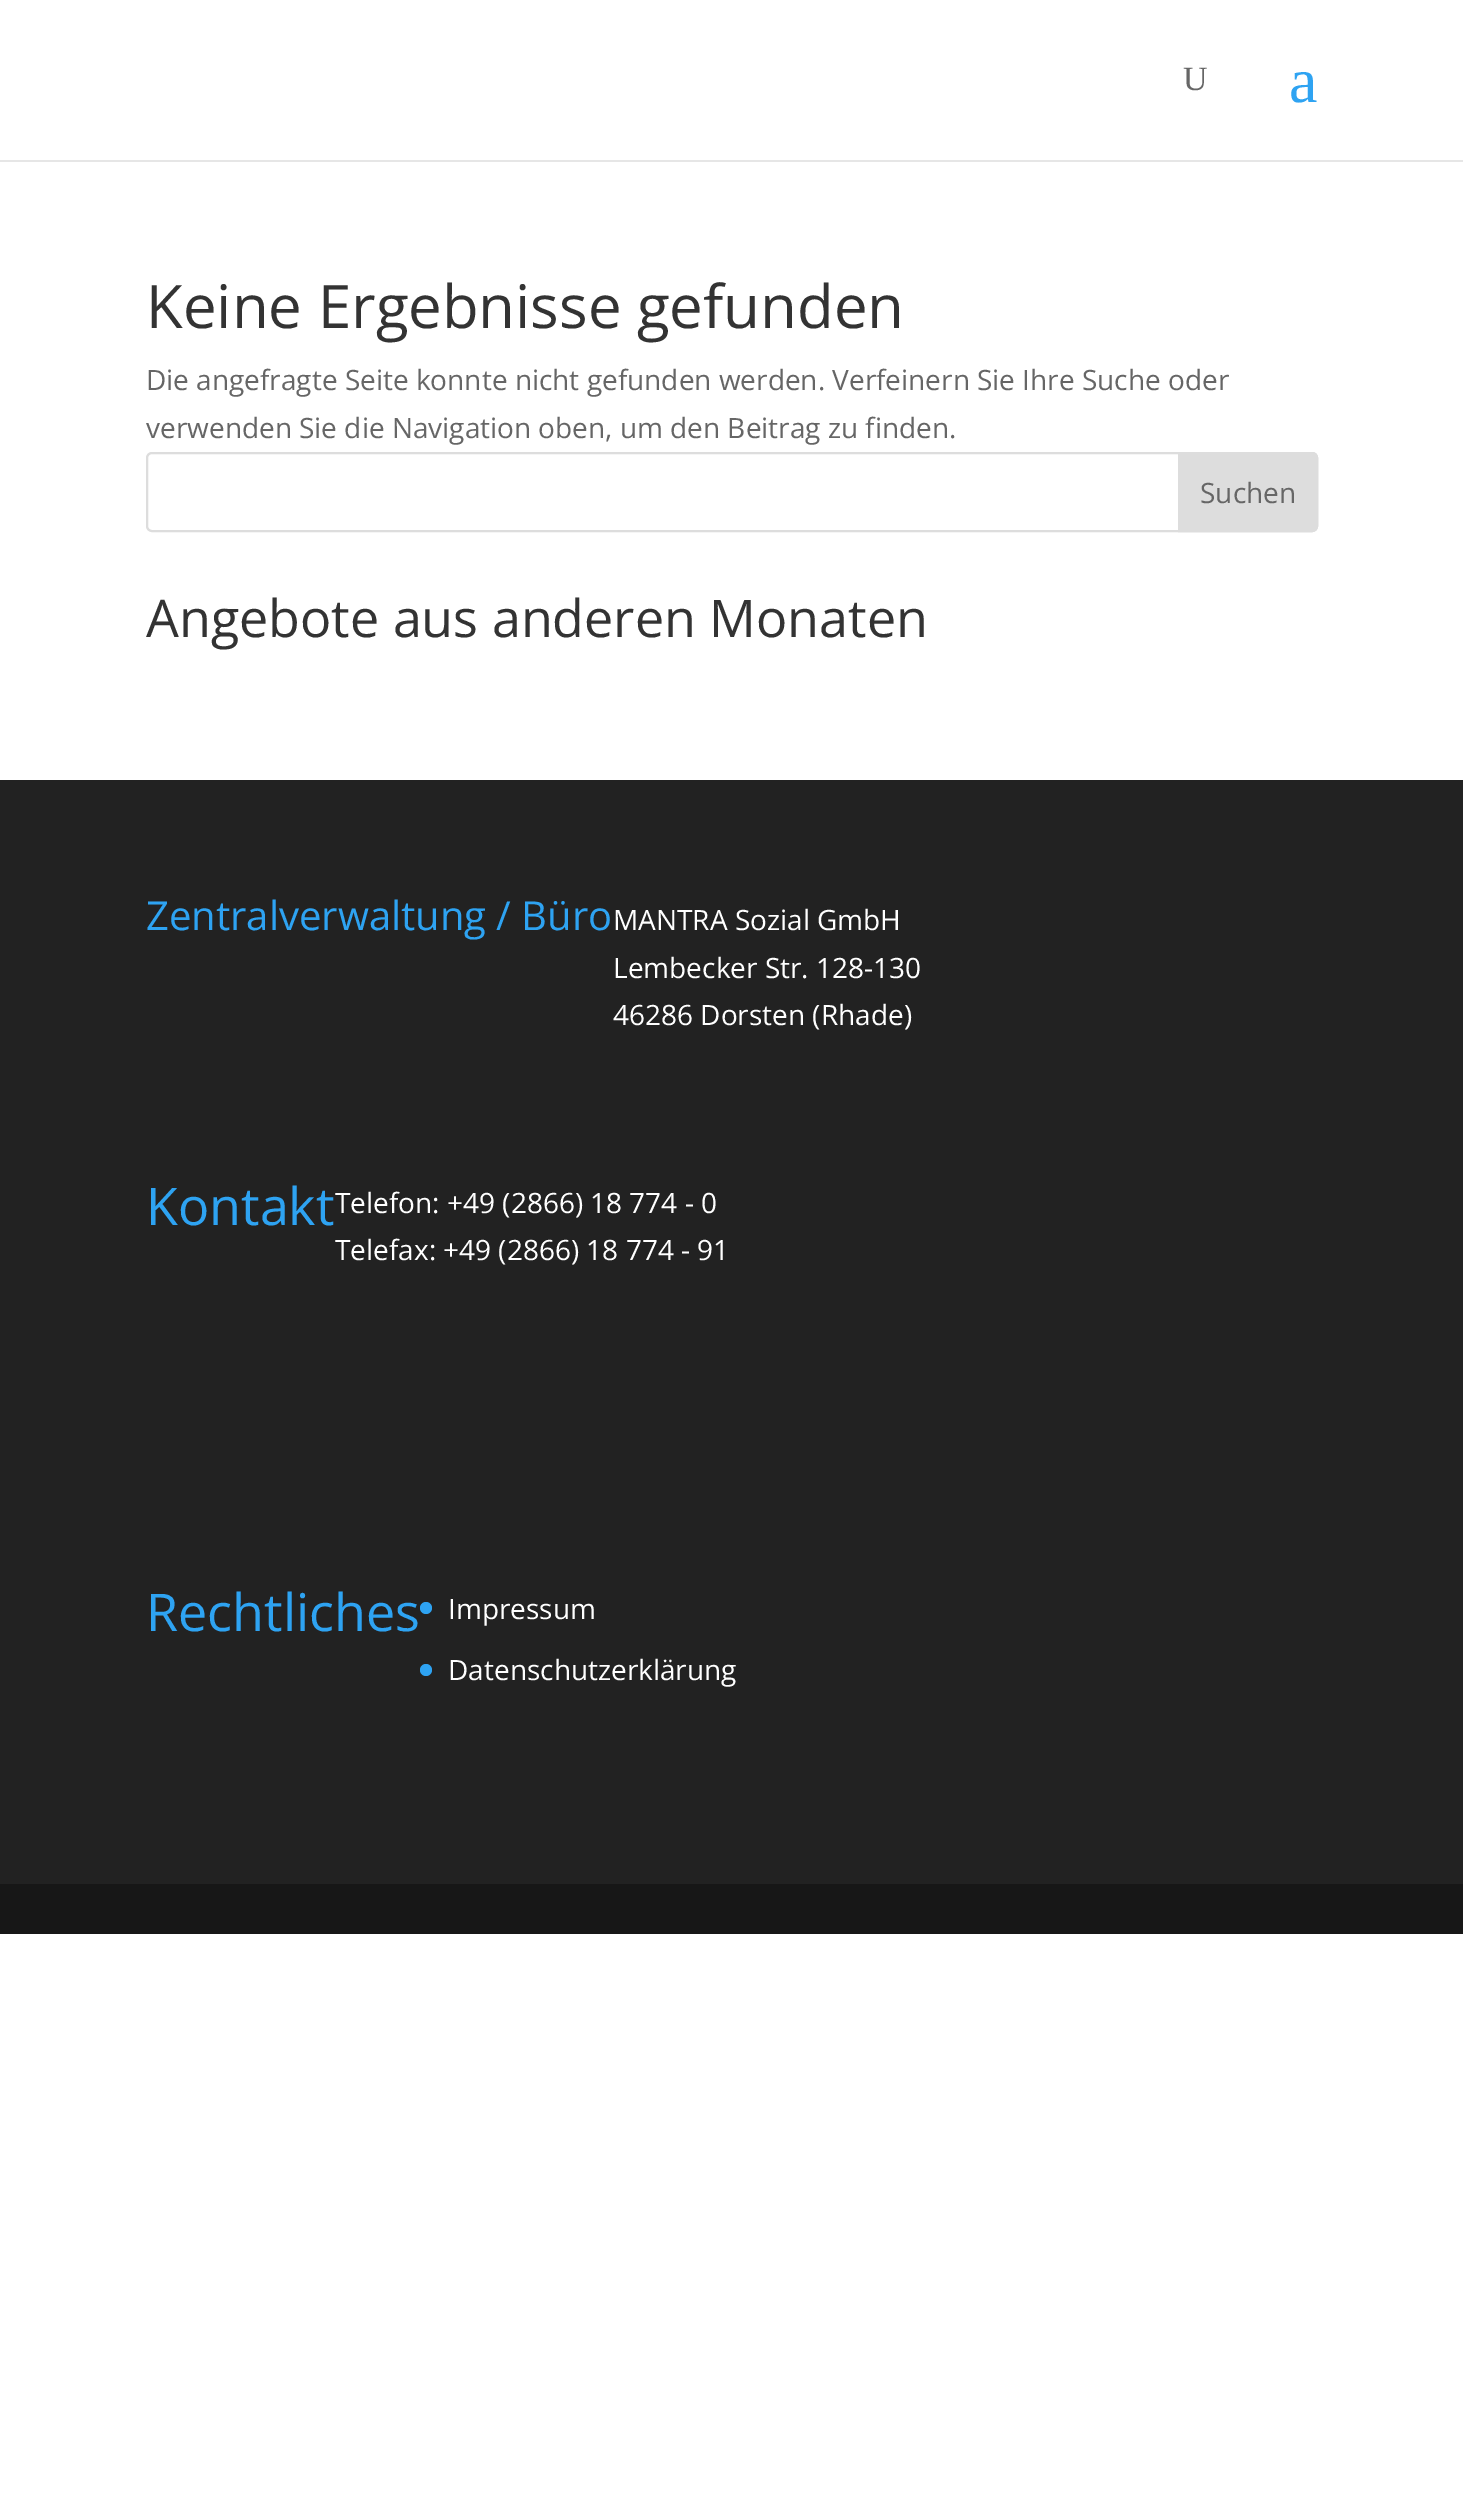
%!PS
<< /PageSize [1463 2498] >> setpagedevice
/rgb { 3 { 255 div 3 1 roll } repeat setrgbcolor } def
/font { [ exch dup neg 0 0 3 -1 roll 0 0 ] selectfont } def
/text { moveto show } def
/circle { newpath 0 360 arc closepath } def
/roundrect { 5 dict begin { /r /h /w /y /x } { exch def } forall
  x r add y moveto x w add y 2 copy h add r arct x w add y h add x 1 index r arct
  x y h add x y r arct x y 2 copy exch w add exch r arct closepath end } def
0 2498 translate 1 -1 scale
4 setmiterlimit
255 255 255 rgb
0 0 1463 2498 rectfill
230 230 230 rgb
0 160 1463 2 rectfill
221 221 221 rgb
2 setlinewidth
147 453 1170 78 5 roundrect stroke
1179 453 moveto 133 0 rlineto 3 0 5 2 5 5 rcurveto 0 68 rlineto 0 3 -2 5 -5 5 rcurveto -133 0 rlineto closepath gsave fill grestore
stroke
34 34 34 rgb
0 780 1463 1104 rectfill
46 163 242 rgb
426 1608 6 circle fill
426 1670 6 circle fill
23 23 23 rgb
0 1884 1463 50 rectfill
/LiberationSerif-Regular 34 font
102 102 102 rgb
(U) 1183 90 text
/LiberationSerif-Regular 64 font
46 163 242 rgb
(a) 1289 102 text
/OpenSans-Regular 60 font
51 51 51 rgb
(Keine Ergebnisse gefunden) 146 328 text
/OpenSans-Regular 28 font
102 102 102 rgb
(Die angefragte Seite konnte nicht gefunden werden. Verfeinern Sie Ihre Suche oder) 146 390 text
(verwenden Sie die Navigation oben, um den Beitrag zu finden.) 146 438 text
(Suchen) 1200 503 text
/OpenSans-Regular 52 font
51 51 51 rgb
(Angebote aus anderen Monaten) 146 637 text
/OpenSans-Regular 40 font
46 163 242 rgb
(Zentralverwaltung / Büro) 146 930 text
/OpenSans-Regular 28 font
255 255 255 rgb
(MANTRA Sozial GmbH) 613 930 text
(Lembecker Str. 128-130) 613 978 text
(46286 Dorsten \(Rhade\)) 613 1025 text
/OpenSans-Regular 52 font
46 163 242 rgb
(Kontakt) 146 1225 text
/OpenSans-Regular 28 font
255 255 255 rgb
(Telefon: +49 \(2866\) 18 774 - 0) 335 1213 text
(Telefax: +49 \(2866\) 18 774 - 91) 335 1260 text
/OpenSans-Regular 52 font
46 163 242 rgb
(Rechtliches) 146 1631 text
/OpenSans-Regular 28 font
255 255 255 rgb
(Impressum) 448 1619 text
(Datenschutzerklärung) 448 1680 text
showpage
